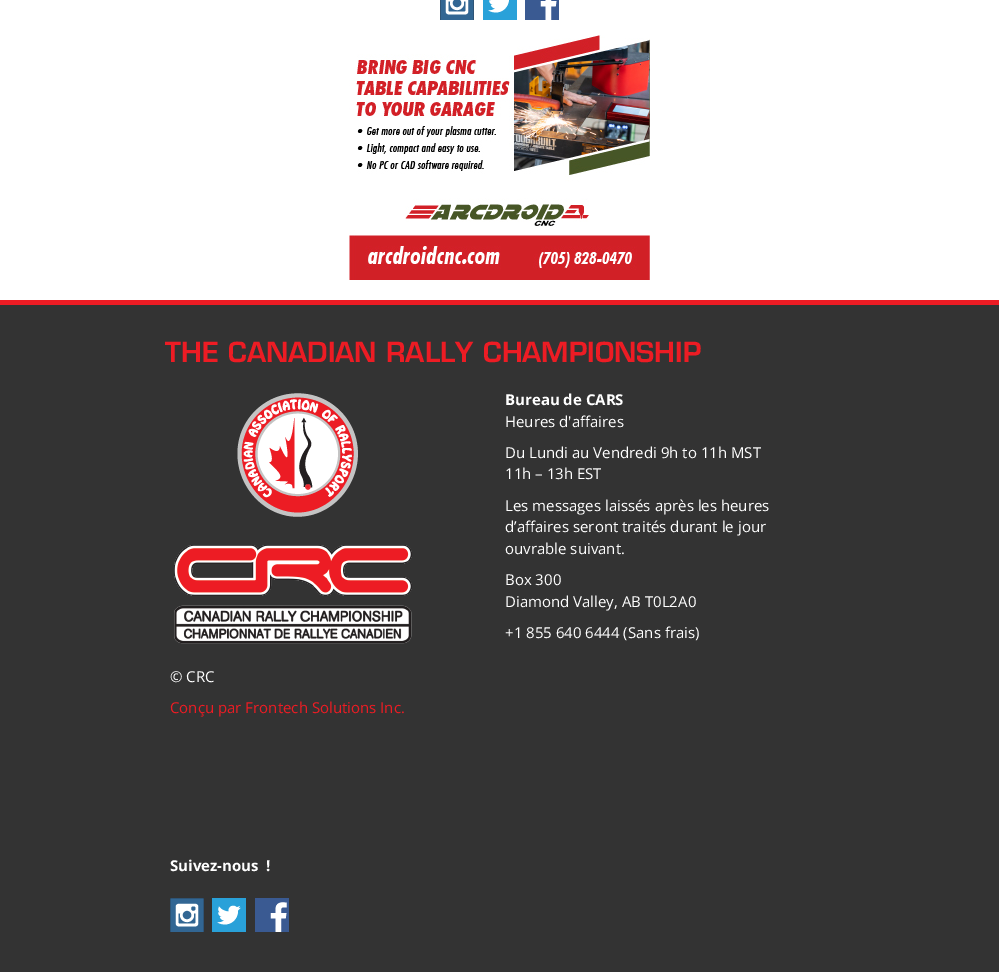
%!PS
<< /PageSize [999 972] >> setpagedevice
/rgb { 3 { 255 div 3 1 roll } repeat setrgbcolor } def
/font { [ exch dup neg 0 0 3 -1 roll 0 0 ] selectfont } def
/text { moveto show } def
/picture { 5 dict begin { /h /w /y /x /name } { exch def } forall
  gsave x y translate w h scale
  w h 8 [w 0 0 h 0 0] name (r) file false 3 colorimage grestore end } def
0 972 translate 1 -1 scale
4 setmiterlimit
255 255 255 rgb
0 0 999 972 rectfill
(img_01.rgb) 440 0 34 20 picture
(img_02.rgb) 483 0 34 20 picture
(img_03.rgb) 525 0 34 20 picture
(img_04.rgb) 349 35 301 245 picture
51 51 51 rgb
0 305 999 667 rectfill
237 28 36 rgb
0 300 999 5 rectfill
(img_05.rgb) 174 393 238 251 picture
(img_06.rgb) 170 898 34 34 picture
(img_07.rgb) 212 898 34 34 picture
(img_08.rgb) 255 898 34 34 picture
/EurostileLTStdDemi-Regular 27 font
(THE CANADIAN RALLY CHAMPIONSHIP) 165 362 text
/OpenSans-Bold 15 font
255 255 255 rgb
(Bureau de CARS) 505 405 text
/OpenSans-Regular 15 font
(Heures d'affaires) 505 427 text
(Du Lundi au Vendredi 9h to 11h MST) 505 458 text
(11h – 13h EST) 505 479 text
(Les messages laissés après les heures) 505 511 text
(d’affaires seront traités durant le jour) 505 532 text
(ouvrable suivant.) 505 554 text
(Box 300) 505 585 text
(Diamond Valley, AB T0L2A0) 505 607 text
(+1 855 640 6444 \(Sans frais\)) 505 638 text
(© CRC) 170 682 text
237 28 36 rgb
(Conçu par Frontech Solutions Inc.) 170 713 text
/OpenSans-Bold 15 font
255 255 255 rgb
(Suivez-nous  !) 170 871 text
showpage
